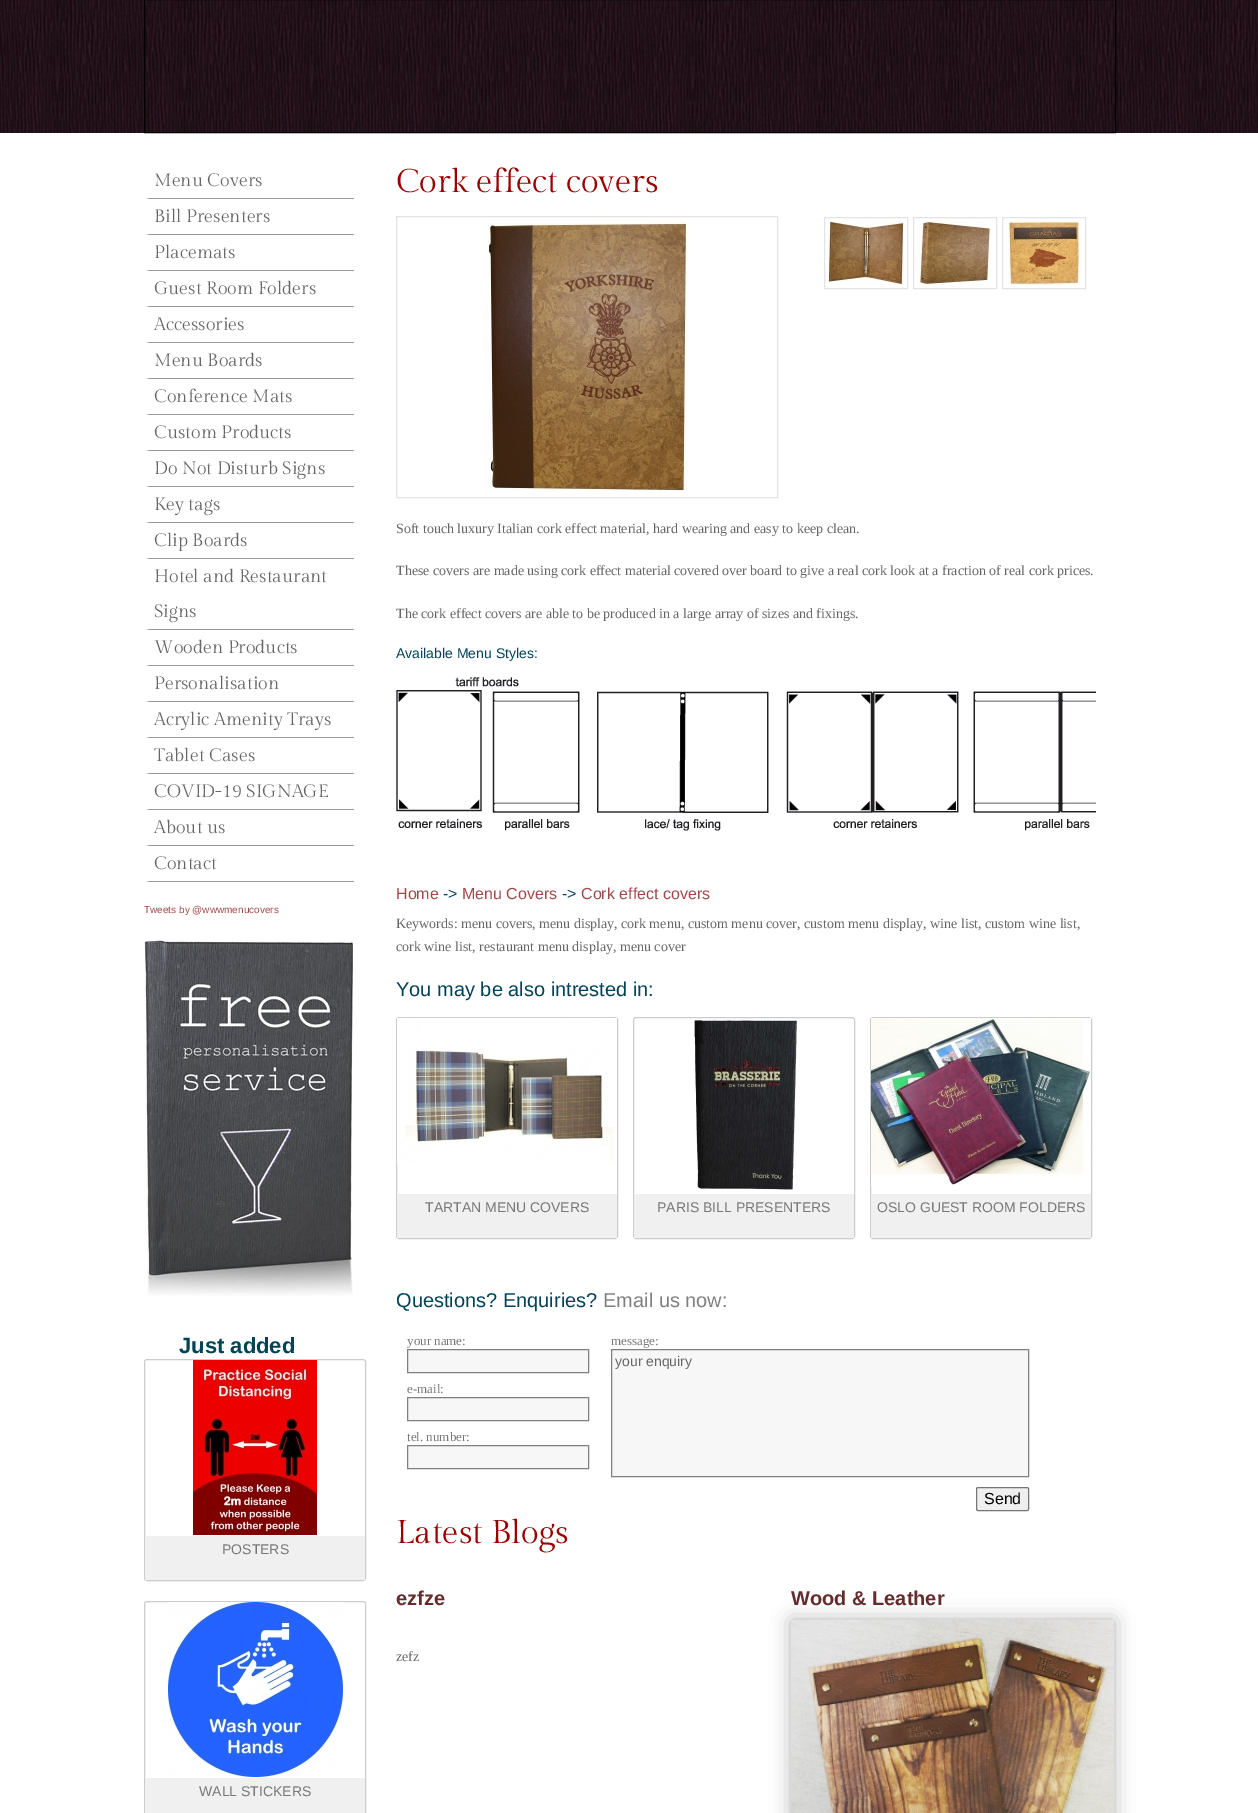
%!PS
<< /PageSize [1258 1813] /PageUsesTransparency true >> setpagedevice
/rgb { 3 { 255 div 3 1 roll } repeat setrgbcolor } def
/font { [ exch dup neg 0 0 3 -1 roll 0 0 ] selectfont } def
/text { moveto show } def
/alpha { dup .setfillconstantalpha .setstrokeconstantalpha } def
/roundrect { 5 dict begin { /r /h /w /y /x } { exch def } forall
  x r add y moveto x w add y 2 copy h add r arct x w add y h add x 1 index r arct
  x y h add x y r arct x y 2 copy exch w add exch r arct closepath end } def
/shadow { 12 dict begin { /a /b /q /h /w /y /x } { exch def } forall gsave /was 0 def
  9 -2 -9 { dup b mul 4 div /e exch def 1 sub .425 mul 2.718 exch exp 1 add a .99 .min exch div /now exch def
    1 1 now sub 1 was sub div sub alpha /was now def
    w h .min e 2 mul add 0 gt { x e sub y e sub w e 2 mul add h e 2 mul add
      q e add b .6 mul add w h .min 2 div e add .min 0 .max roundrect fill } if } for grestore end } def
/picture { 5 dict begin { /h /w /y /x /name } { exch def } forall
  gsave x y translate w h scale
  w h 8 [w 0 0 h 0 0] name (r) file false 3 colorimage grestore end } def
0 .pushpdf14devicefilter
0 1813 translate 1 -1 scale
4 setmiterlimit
255 255 255 rgb
0 0 1258 1813 rectfill
(img_01.rgb) 0 0 1258 133 picture
0 0 0 rgb
144.5 -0.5 971 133 rectstroke
153 153 153 rgb
354 199 moveto -210 0 rlineto 5 -1 rlineto 205 0 rlineto closepath fill
255 255 255 rgb
144 199 moveto 0 -36 rlineto 5 0 rlineto 0 35 rlineto closepath fill
153 153 153 rgb
354 235 moveto -210 0 rlineto 5 -1 rlineto 205 0 rlineto closepath fill
255 255 255 rgb
144 235 moveto 0 -36 rlineto 5 0 rlineto 0 35 rlineto closepath fill
153 153 153 rgb
354 271 moveto -210 0 rlineto 5 -1 rlineto 205 0 rlineto closepath fill
255 255 255 rgb
144 271 moveto 0 -36 rlineto 5 0 rlineto 0 35 rlineto closepath fill
153 153 153 rgb
354 307 moveto -210 0 rlineto 5 -1 rlineto 205 0 rlineto closepath fill
255 255 255 rgb
144 307 moveto 0 -36 rlineto 5 0 rlineto 0 35 rlineto closepath fill
153 153 153 rgb
354 343 moveto -210 0 rlineto 5 -1 rlineto 205 0 rlineto closepath fill
255 255 255 rgb
144 343 moveto 0 -36 rlineto 5 0 rlineto 0 35 rlineto closepath fill
153 153 153 rgb
354 379 moveto -210 0 rlineto 5 -1 rlineto 205 0 rlineto closepath fill
255 255 255 rgb
144 379 moveto 0 -36 rlineto 5 0 rlineto 0 35 rlineto closepath fill
153 153 153 rgb
354 415 moveto -210 0 rlineto 5 -1 rlineto 205 0 rlineto closepath fill
255 255 255 rgb
144 415 moveto 0 -36 rlineto 5 0 rlineto 0 35 rlineto closepath fill
153 153 153 rgb
354 451 moveto -210 0 rlineto 5 -1 rlineto 205 0 rlineto closepath fill
255 255 255 rgb
144 451 moveto 0 -36 rlineto 5 0 rlineto 0 35 rlineto closepath fill
153 153 153 rgb
354 487 moveto -210 0 rlineto 5 -1 rlineto 205 0 rlineto closepath fill
255 255 255 rgb
144 487 moveto 0 -36 rlineto 5 0 rlineto 0 35 rlineto closepath fill
153 153 153 rgb
354 523 moveto -210 0 rlineto 5 -1 rlineto 205 0 rlineto closepath fill
255 255 255 rgb
144 523 moveto 0 -36 rlineto 5 0 rlineto 0 35 rlineto closepath fill
153 153 153 rgb
354 559 moveto -210 0 rlineto 5 -1 rlineto 205 0 rlineto closepath fill
255 255 255 rgb
144 559 moveto 0 -36 rlineto 5 0 rlineto 0 35 rlineto closepath fill
153 153 153 rgb
354 630 moveto -210 0 rlineto 5 -1 rlineto 205 0 rlineto closepath fill
255 255 255 rgb
144 630 moveto 0 -71 rlineto 5 0 rlineto 0 70 rlineto closepath fill
153 153 153 rgb
354 666 moveto -210 0 rlineto 5 -1 rlineto 205 0 rlineto closepath fill
255 255 255 rgb
144 666 moveto 0 -36 rlineto 5 0 rlineto 0 35 rlineto closepath fill
153 153 153 rgb
354 702 moveto -210 0 rlineto 5 -1 rlineto 205 0 rlineto closepath fill
255 255 255 rgb
144 702 moveto 0 -36 rlineto 5 0 rlineto 0 35 rlineto closepath fill
153 153 153 rgb
354 738 moveto -210 0 rlineto 5 -1 rlineto 205 0 rlineto closepath fill
255 255 255 rgb
144 738 moveto 0 -36 rlineto 5 0 rlineto 0 35 rlineto closepath fill
153 153 153 rgb
354 774 moveto -210 0 rlineto 5 -1 rlineto 205 0 rlineto closepath fill
255 255 255 rgb
144 774 moveto 0 -36 rlineto 5 0 rlineto 0 35 rlineto closepath fill
153 153 153 rgb
354 810 moveto -210 0 rlineto 5 -1 rlineto 205 0 rlineto closepath fill
255 255 255 rgb
144 810 moveto 0 -36 rlineto 5 0 rlineto 0 35 rlineto closepath fill
153 153 153 rgb
354 846 moveto -210 0 rlineto 5 -1 rlineto 205 0 rlineto closepath fill
255 255 255 rgb
144 846 moveto 0 -36 rlineto 5 0 rlineto 0 35 rlineto closepath fill
153 153 153 rgb
354 882 moveto -210 0 rlineto 5 -1 rlineto 205 0 rlineto closepath fill
255 255 255 rgb
144 882 moveto 0 -36 rlineto 5 0 rlineto 0 35 rlineto closepath fill
(img_02.rgb) 144 940 209 356 picture
204 204 204 rgb
144.5 1359.5 221 221 2.5 roundrect stroke
(img_03.rgb) 193 1360 124 175 picture
240 240 240 rgb
145 1536 220 44 rectfill
204 204 204 rgb
144.5 1601.5 221 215 2.5 roundrect stroke
(img_04.rgb) 168 1602 175 175 picture
240 240 240 rgb
145 1778 220 35 rectfill
227 227 227 rgb
396.5 216.5 381 281 rectstroke
(img_05.rgb) 485 220 202 272 picture
824.5 217.5 83 71 rectstroke
(img_06.rgb) 828 221 76 64 picture
913.5 217.5 83 71 rectstroke
(img_07.rgb) 919 221 72 64 picture
1002.5 217.5 83 71 rectstroke
(img_08.rgb) 1008 221 73 64 picture
(img_09.rgb) 396 677 700 154 picture
204 204 204 rgb
396.5 1017.5 221 221 2.5 roundrect stroke
(img_10.rgb) 397 1018 220 145 picture
240 240 240 rgb
397 1194 220 44 rectfill
204 204 204 rgb
633.5 1017.5 221 221 2.5 roundrect stroke
(img_11.rgb) 694 1020 103 170 picture
240 240 240 rgb
634 1194 220 44 rectfill
204 204 204 rgb
870.5 1017.5 221 221 2.5 roundrect stroke
(img_12.rgb) 871 1018 220 168 picture
240 240 240 rgb
871 1194 220 44 rectfill
247 247 247 rgb
407.5 1349.5 moveto 181 0 rlineto 0 23 rlineto -181 0 rlineto closepath gsave fill grestore
128 128 128 rgb
stroke
247 247 247 rgb
611.5 1349.5 moveto 417 0 rlineto 0 127 rlineto -417 0 rlineto closepath gsave fill grestore
128 128 128 rgb
stroke
239 239 239 rgb
976.5 1487.5 52 23 1.5 roundrect gsave fill grestore
118 118 118 rgb
stroke
247 247 247 rgb
407.5 1397.5 moveto 181 0 rlineto 0 23 rlineto -181 0 rlineto closepath gsave fill grestore
128 128 128 rgb
stroke
247 247 247 rgb
407.5 1445.5 moveto 181 0 rlineto 0 23 rlineto -181 0 rlineto closepath gsave fill grestore
128 128 128 rgb
stroke
178 178 178 rgb
791 1620 323 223 0 10 1 shadow
(img_13.rgb) 791 1620 323 193 picture
/GildaDisplay-Regular 18 font
102 102 102 rgb
(Menu Covers) 154 186 text
(Bill Presenters) 154 222 text
(Placemats) 154 258 text
(Guest Room Folders) 154 294 text
(Accessories) 154 330 text
(Menu Boards) 154 366 text
(Conference Mats) 154 402 text
(Custom Products) 154 438 text
(Do Not Disturb Signs) 154 474 text
(Key tags) 154 510 text
(Clip Boards) 154 546 text
(Hotel and Restaurant) 154 582 text
(Signs) 154 617 text
(Wooden Products) 154 653 text
(Personalisation) 154 689 text
(Acrylic Amenity Trays) 154 725 text
(Tablet Cases) 154 761 text
(COVID-19 SIGNAGE) 154 797 text
(About us) 154 833 text
(Contact) 154 869 text
/LiberationSans-Regular 10 font
160 73 75 rgb
(Tweets by @wwwmenucovers) 144 913 text
/LiberationSans-Bold 22 font
3 67 88 rgb
(Just added) 179 1353 text
/LiberationSans-Regular 14 font
119 119 119 rgb
(POSTERS) 222 1554 text
(WALL STICKERS) 199 1796 text
/GildaDisplay-Regular 33 font
153 0 0 rgb
(Cork effect covers) 396 192 text
/LiberationSerif-Regular 14 font
102 102 102 rgb
(Soft touch luxury Italian cork effect material, hard wearing and easy to keep clean.) 396 533 text
(These covers are made using cork effect material covered over board to give a real cork look at a fraction of real cork prices.) 396 575 text
(The cork effect covers are able to be produced in a large array of sizes and fixings.) 396 618 text
/LiberationSans-Regular 14 font
3 67 88 rgb
(Available Menu Styles:) 396 658 text
/LiberationSans-Regular 16 font
160 73 75 rgb
(Home) 396 899 text
3 67 88 rgb
(->) 443 899 text
160 73 75 rgb
(Menu Covers) 462 899 text
3 67 88 rgb
(->) 562 899 text
160 73 75 rgb
(Cork effect covers) 581 899 text
/LiberationSerif-Regular 14 font
102 102 102 rgb
(Keywords: menu covers, menu display, cork menu, custom menu cover, custom menu display, wine list, custom wine list,) 396 928 text
(cork wine list, restaurant menu display, menu cover) 396 951 text
/LiberationSans-Regular 20 font
3 67 88 rgb
(You may be also intrested in:) 396 996 text
/LiberationSans-Regular 14 font
119 119 119 rgb
(TARTAN MENU COVERS) 425 1212 text
(PARIS BILL PRESENTERS) 657 1212 text
(OSLO GUEST ROOM FOLDERS) 877 1212 text
/LiberationSans-Regular 20 font
3 67 88 rgb
(Questions? Enquiries?) 396 1307 text
128 128 128 rgb
(Email us now:) 603 1307 text
/LiberationSerif-Regular 13 font
119 119 119 rgb
(your name:) 407 1345 text
(message:) 611 1345 text
/LiberationSans-Regular 14 font
102 102 102 rgb
(your enquiry) 615 1366 text
/LiberationSans-Regular 16 font
0 0 0 rgb
(Send) 984 1504 text
/LiberationSerif-Regular 13 font
119 119 119 rgb
(e-mail:) 407 1393 text
(tel. number:) 407 1441 text
/GildaDisplay-Regular 33 font
153 0 0 rgb
(Latest Blogs) 396 1543 text
/LiberationSans-Bold 20 font
100 44 44 rgb
(ezfze) 396 1605 text
/LiberationSerif-Regular 14 font
102 102 102 rgb
(zefz) 396 1661 text
/LiberationSans-Bold 20 font
100 44 44 rgb
(Wood & Leather) 791 1605 text
.poppdf14devicefilter showpage
